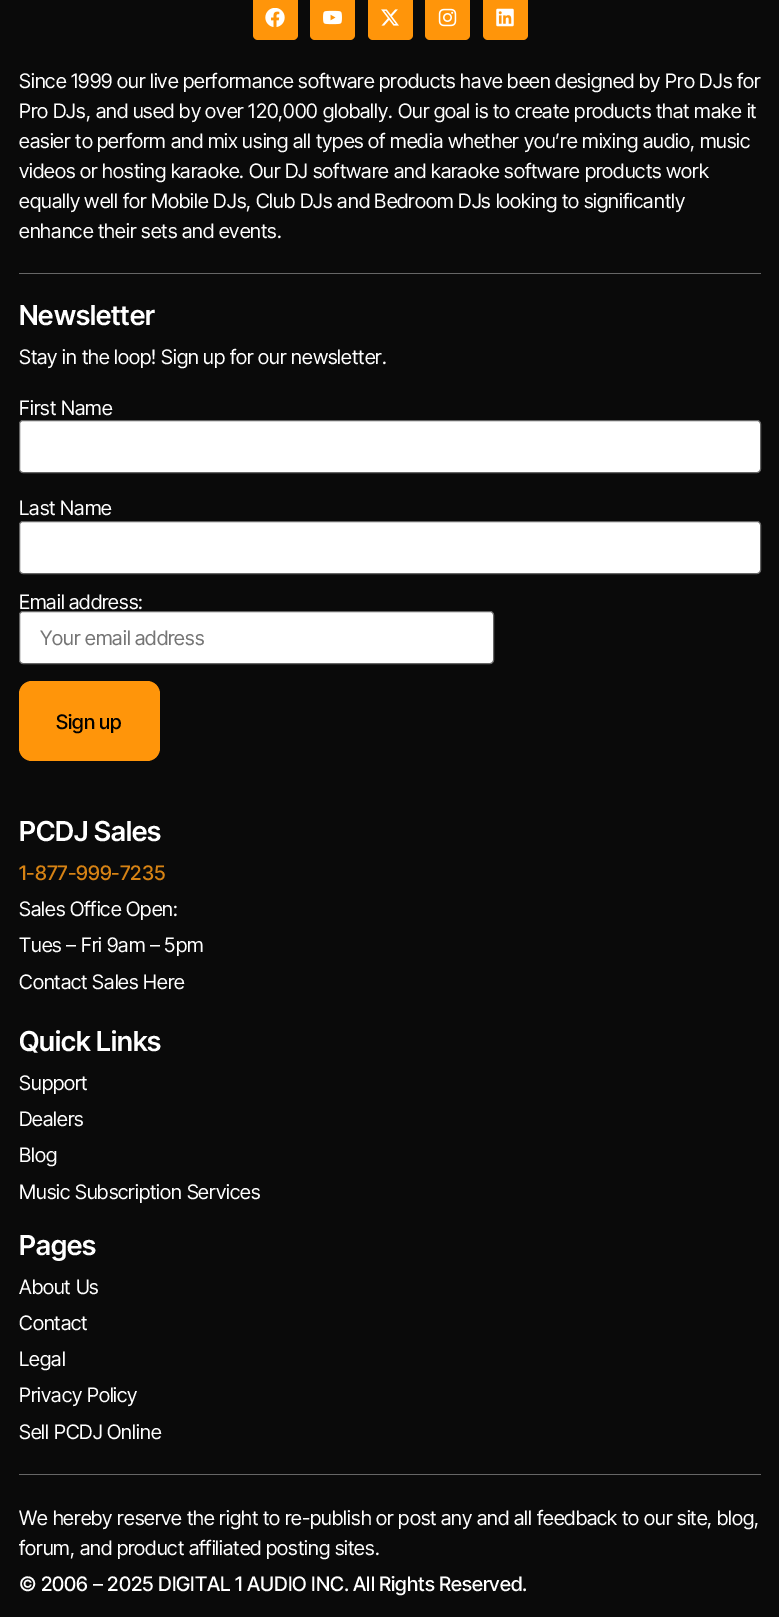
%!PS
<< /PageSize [779 1617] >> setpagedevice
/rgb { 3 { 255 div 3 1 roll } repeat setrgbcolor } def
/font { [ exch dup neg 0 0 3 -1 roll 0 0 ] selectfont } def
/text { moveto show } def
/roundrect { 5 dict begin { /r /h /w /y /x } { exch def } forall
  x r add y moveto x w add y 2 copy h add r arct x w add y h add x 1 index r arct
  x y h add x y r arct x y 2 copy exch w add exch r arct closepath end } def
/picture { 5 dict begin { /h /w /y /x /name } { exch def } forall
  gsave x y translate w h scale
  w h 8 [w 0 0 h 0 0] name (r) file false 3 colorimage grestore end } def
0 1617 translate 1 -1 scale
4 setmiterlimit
10 10 10 rgb
0 0 779 1617 rectfill
255 149 10 rgb
253 -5 45 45 5 roundrect fill
(img_01.rgb) 265 8 20 19 picture
310 -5 45 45 5 roundrect fill
(img_02.rgb) 323 10 19 15 picture
368 -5 45 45 5 roundrect fill
(img_03.rgb) 381 9 18 17 picture
425 -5 45 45 5 roundrect fill
(img_04.rgb) 438 8 19 19 picture
483 -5 45 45 5 roundrect fill
(img_05.rgb) 496 8 18 19 picture
102 102 102 rgb
19 273 742 1 rectfill
255 255 255 rgb
19.5 420.5 741 52 3.5 roundrect gsave fill grestore
102 102 102 rgb
stroke
255 255 255 rgb
19.5 521.5 741 52 3.5 roundrect gsave fill grestore
102 102 102 rgb
stroke
255 255 255 rgb
19.5 611.5 474 52 3.5 roundrect gsave fill grestore
102 102 102 rgb
stroke
255 149 10 rgb
19 681 141 80 13 roundrect fill
102 102 102 rgb
19 1474 742 1 rectfill
/InterTight-Regular 20 font
255 255 255 rgb
(Since 1999 our live performance software products have been designed by Pro DJs for) 19 88 text
(Pro DJs, and used by over 120,000 globally. Our goal is to create products that make it) 19 118 text
(easier to perform and mix using all types of media whether you’re mixing audio, music) 19 148 text
(videos or hosting karaoke. Our DJ software and karaoke software products work) 19 178 text
(equally well for Mobile DJs, Club DJs and Bedroom DJs looking to significantly) 19 208 text
(enhance their sets and events.) 19 238 text
/InterTight-SemiBold 27.5 font
(Newsletter) 19 325 text
/InterTight-Regular 20 font
(Stay in the loop! Sign up for our newsletter.) 19 364 text
(First Name) 19 415 text
(Last Name) 19 515 text
(Email address:) 19 609 text
117 117 117 rgb
(Your email address) 40 645 text
/InterTight-Medium 20 font
0 0 0 rgb
(Sign up) 56 729 text
/InterTight-SemiBold 27.5 font
255 255 255 rgb
(PCDJ Sales) 19 841 text
/InterTight-Medium 20 font
215 131 20 rgb
(1-877-999-7235) 19 880 text
/InterTight-Regular 20 font
255 255 255 rgb
(Sales Office Open:) 19 916 text
(Tues – Fri 9am – 5pm) 19 952 text
(Contact Sales Here) 19 989 text
/InterTight-SemiBold 27.5 font
(Quick Links) 19 1051 text
/InterTight-Regular 20 font
(Support) 19 1090 text
(Dealers) 19 1126 text
(Blog) 19 1162 text
(Music Subscription Services) 19 1199 text
/InterTight-SemiBold 27.5 font
(Pages) 19 1255 text
/InterTight-Regular 20 font
(About Us) 19 1294 text
(Contact) 19 1330 text
(Legal) 19 1366 text
(Privacy Policy) 19 1402 text
(Sell PCDJ Online) 19 1439 text
(We hereby reserve the right to re-publish or post any and all feedback to our site, blog,) 19 1525 text
(forum, and product affiliated posting sites.) 19 1555 text
/InterTight-Medium 20 font
(© 2006 – 2025 DIGITAL 1 AUDIO INC. All Rights Reserved.) 19 1591 text
showpage
